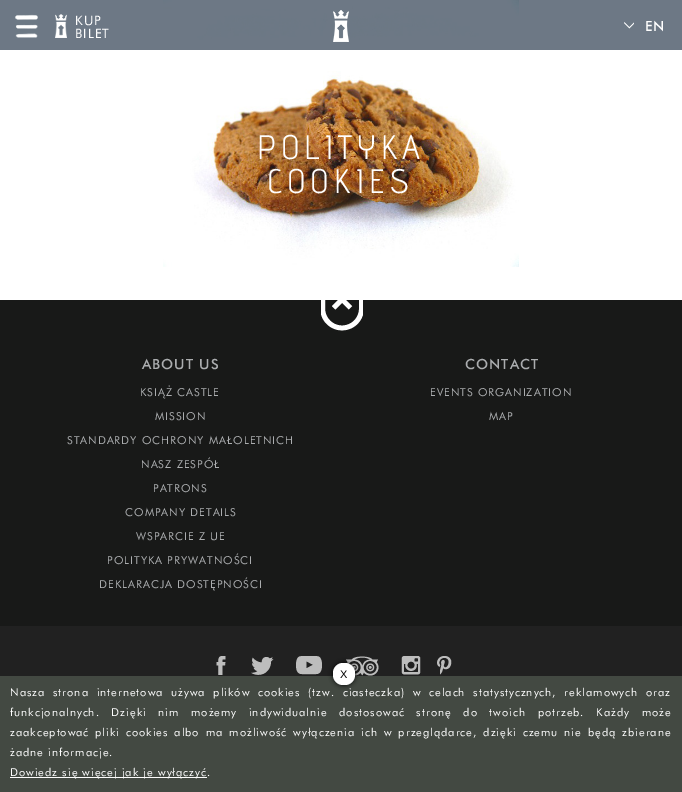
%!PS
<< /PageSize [682 792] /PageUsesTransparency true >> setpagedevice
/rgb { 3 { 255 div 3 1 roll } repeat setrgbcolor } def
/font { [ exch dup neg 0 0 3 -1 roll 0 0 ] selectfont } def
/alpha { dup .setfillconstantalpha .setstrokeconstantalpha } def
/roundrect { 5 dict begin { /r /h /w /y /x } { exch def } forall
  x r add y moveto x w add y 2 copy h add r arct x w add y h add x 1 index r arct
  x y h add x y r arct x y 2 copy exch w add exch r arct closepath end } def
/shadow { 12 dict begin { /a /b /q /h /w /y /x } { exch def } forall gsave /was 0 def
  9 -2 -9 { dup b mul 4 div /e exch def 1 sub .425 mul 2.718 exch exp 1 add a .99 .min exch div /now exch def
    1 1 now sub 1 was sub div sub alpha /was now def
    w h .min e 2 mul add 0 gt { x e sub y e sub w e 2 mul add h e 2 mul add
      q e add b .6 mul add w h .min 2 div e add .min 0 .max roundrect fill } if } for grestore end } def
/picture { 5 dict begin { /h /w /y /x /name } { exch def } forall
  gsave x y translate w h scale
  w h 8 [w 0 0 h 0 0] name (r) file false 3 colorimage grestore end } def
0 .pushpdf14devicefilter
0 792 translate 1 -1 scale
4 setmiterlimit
255 255 255 rgb
0 0 682 792 rectfill
(img_05.rgb) 163 0 356 267 picture
0.7 alpha
47 63 81 rgb
0 0 682 50 rectfill
1 alpha
(img_01.rgb) 15 14 23 24 picture
(img_02.rgb) 55 14 12 24 picture
(img_03.rgb) 333 10 16 32 picture
(img_04.rgb) 624 22 10 7 picture
24 25 24 rgb
0 300 682 326 rectfill
(img_06.rgb) 321 300 42 31 picture
33 33 33 rgb
0 626 682 50 rectfill
(img_07.rgb) 216 656 10 19 picture
(img_08.rgb) 251 657 23 18 picture
(img_09.rgb) 296 656 26 19 picture
(img_10.rgb) 346 656 33 20 picture
(img_11.rgb) 401 656 20 19 picture
(img_12.rgb) 437 656 15 19 picture
67 73 66 rgb
0 676 682 116 rectfill
0 0 0 rgb
333 663 22 22 10 2.5 1 shadow
255 255 255 rgb
333 663 22 22 10 roundrect fill
252 252 252 rgb
10 777 197 1 rectfill
/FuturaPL-Regular 13 font
255 255 255 rgb
75 25 moveto 1 0 (KUP) ashow
75 38 moveto 1 0 (BILET) ashow
/FuturaPL-Medium 14 font
645 31 moveto 1 0 (EN) ashow
/AdventPro-Regular 34 font
257 159 moveto 5 0 (POLITYKA) ashow
267 193 moveto 5 0 (COOKIES) ashow
/FuturaPL-Medium 14 font
171 173 175 rgb
142 369 moveto 1 0 (ABOUT US) ashow
/FuturaPL-Regular 11 font
140 396 moveto 1 0 (KSIĄŻ CASTLE) ashow
155 420 moveto 1 0 (MISSION) ashow
67 444 moveto 1 0 (STANDARDY OCHRONY MAŁOLETNICH) ashow
141 468 moveto 1 0 (NASZ ZESPÓŁ) ashow
153 492 moveto 1 0 (PATRONS) ashow
125 516 moveto 1 0 (COMPANY DETAILS) ashow
136 540 moveto 1 0 (WSPARCIE Z UE) ashow
107 564 moveto 1 0 (POLITYKA PRYWATNOŚCI) ashow
99 588 moveto 1 0 (DEKLARACJA DOSTĘPNOŚCI) ashow
/FuturaPL-Medium 14 font
465 369 moveto 1 0 (CONTACT) ashow
/FuturaPL-Regular 11 font
430 396 moveto 1 0 (EVENTS ORGANIZATION) ashow
489 420 moveto 1 0 (MAP) ashow
/LiberationSans-Regular 11 font
0 0 0 rgb
340 678 moveto 1 0 (X) ashow
/FuturaPL-Regular 11 font
255 255 255 rgb
10 696 moveto 3.5 0 32 1 0 (Nasza strona internetowa używa plików cookies \(tzw. ciasteczka\) w celach statystycznych, reklamowych oraz) awidthshow
10 716 moveto 7.4 0 32 1 0 (funkcjonalnych. Dzięki nim możemy indywidualnie dostosować stronę do twoich potrzeb. Każdy może) awidthshow
10 736 moveto 1 0 (zaakceptować) ashow
95 736 moveto 1.75 0 32 1 0 (pliki cookies albo ma możliwość wyłączenia ich w przeglądarce, dzięki czemu nie będą zbierane) awidthshow
10 756 moveto 1 0 (żadne informacje.) ashow
10 776 moveto 1 0 (Dowiedz się więcej jak je wyłączyć.) ashow
.poppdf14devicefilter showpage
